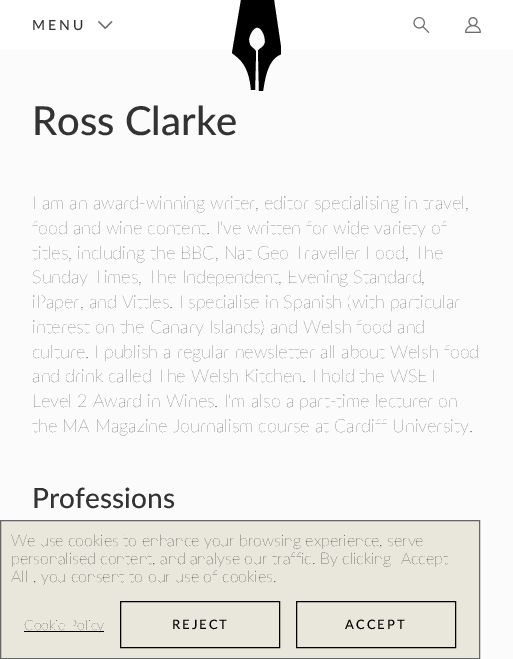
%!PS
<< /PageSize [513 659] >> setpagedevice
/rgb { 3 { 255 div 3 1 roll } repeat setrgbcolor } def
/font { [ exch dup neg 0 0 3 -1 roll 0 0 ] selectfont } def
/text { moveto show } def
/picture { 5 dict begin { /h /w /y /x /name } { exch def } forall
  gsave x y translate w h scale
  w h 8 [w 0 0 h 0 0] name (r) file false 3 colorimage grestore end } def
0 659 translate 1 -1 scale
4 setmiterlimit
251 251 251 rgb
0 0 513 659 rectfill
255 255 255 rgb
0 0 241 50 rectfill
274 0 239 50 rectfill
gsave
232 0 49 91 rectclip
0 0 0 rgb
259 91 moveto -1 -40 rlineto 1 -3 6 -3 7 -9 rcurveto 0 -4 -1 -8 -3 -11 rcurveto -6 -9 -12 2 -13 8 rcurveto 0 10 6 8 7 13 rcurveto -1 38 rlineto -4 0 rlineto -1 -12 -4 -25 -14 -33 rcurveto -5 -4 rlineto 9 -53 rlineto 33 0 rlineto 8 54 rlineto -14 4 -17 24 -19 37 rcurveto closepath fill
grestore
(img_01.rgb) 98 21 15 8 picture
(img_02.rgb) 413 17 17 16 picture
(img_03.rgb) 465 17 16 16 picture
233 231 220 rgb
0.5 520.5 moveto 479 0 rlineto 0 138 rlineto -479 0 rlineto closepath gsave fill grestore
101 101 101 rgb
stroke
0 0 0 rgb
24 631 80 1 rectfill
120.5 601.5 159 46 rectstroke
296.5 601.5 159 46 rectstroke
/Lato-Medium 14 font
51 51 51 rgb
32 30 moveto 3 0 (MENU) ashow
/Lato-Medium 40 font
(Ross Clarke) 32 135 text
/Lato-ExtraLight 18 font
(I am an award-winning writer, editor specialising in travel,) 32 209 text
(food and wine content. I've written for wide variety of) 32 234 text
(titles, including the BBC, Nat Geo Traveller Food, The) 32 259 text
(Sunday Times, The Independent, Evening Standard,) 32 283 text
(iPaper, and Vittles. I specialise in Spanish \(with particular) 32 308 text
(interest on the Canary Islands\) and Welsh food and) 32 333 text
(culture. I publish a regular newsletter all about Welsh food) 32 358 text
(and drink called The Welsh Kitchen. I hold the WSET) 32 382 text
(Level 2 Award in Wines. I'm also a part-time lecturer on) 32 407 text
(the MA Magazine Journalism course at Cardiff University.) 32 432 text
/Lato-Medium 28 font
(Professions) 32 508 text
/Lato-ExtraLight 16 font
0 0 0 rgb
(We use cookies to enhance your browsing experience, serve) 11 546 text
(personalised content, and analyse our traffic. By clicking "Accept) 11 564 text
(All", you consent to our use of cookies.) 11 582 text
/Lato-ExtraLight 14 font
(Cookie Policy) 24 630 text
/Lato-Medium 13 font
172 629 moveto 2 0 (REJECT) ashow
345 629 moveto 2 0 (ACCEPT) ashow
showpage
